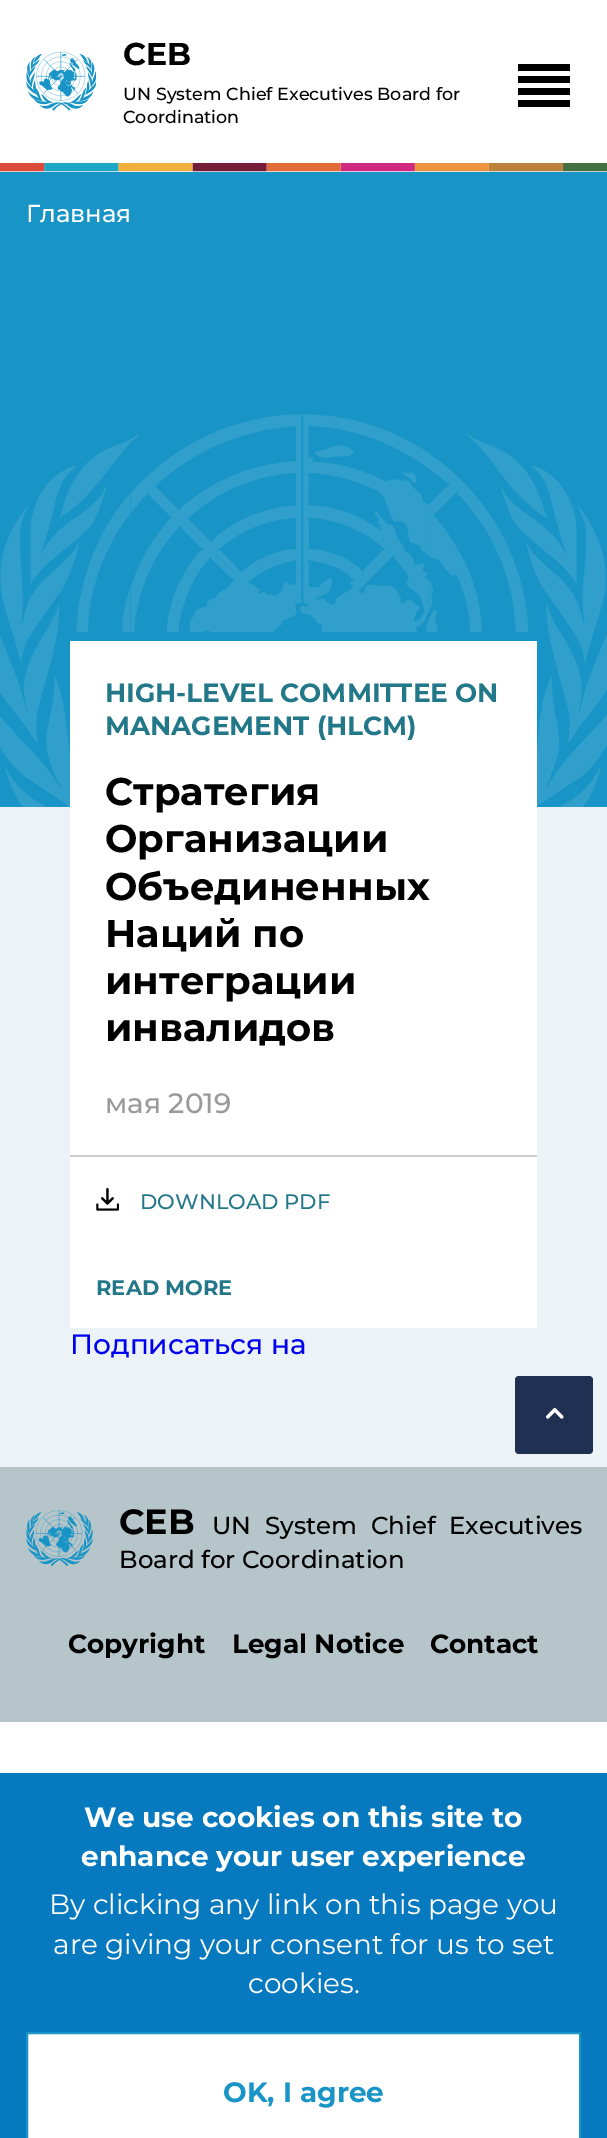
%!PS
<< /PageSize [607 2138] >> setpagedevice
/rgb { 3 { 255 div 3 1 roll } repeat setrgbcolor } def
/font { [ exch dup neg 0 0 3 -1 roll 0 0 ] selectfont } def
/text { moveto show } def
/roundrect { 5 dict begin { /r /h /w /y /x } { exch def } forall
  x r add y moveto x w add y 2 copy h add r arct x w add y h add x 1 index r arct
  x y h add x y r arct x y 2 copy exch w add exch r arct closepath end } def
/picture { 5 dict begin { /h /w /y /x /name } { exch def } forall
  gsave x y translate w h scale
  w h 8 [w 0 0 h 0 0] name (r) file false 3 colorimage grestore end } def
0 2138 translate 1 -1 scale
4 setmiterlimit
255 255 255 rgb
0 0 607 2138 rectfill
236 243 247 rgb
0 163 607 1304 rectfill
(img_01.rgb) 0 163 607 9 picture
(img_02.rgb) 26 51 70 60 picture
0 0 0 rgb
518 64 moveto 52 0 rlineto 0 7 rlineto -52 0 rlineto closepath 518 76 moveto 52 0 rlineto 0 7 rlineto -52 0 rlineto closepath 518 88 moveto 52 0 rlineto 0 7 rlineto -52 0 rlineto closepath 518 100 moveto 52 0 rlineto 0 7 rlineto -52 0 rlineto closepath fill
24 148 198 rgb
0 172 607 635 rectfill
(img_03.rgb) 0 414 607 393 picture
255 255 255 rgb
70 641 467 687 rectfill
24 148 198 rgb
76 632 453 9 rectfill
204 204 204 rgb
70 1155 467 2 rectfill
(img_04.rgb) 96 1187 23 24 picture
181 197 201 rgb
0 1467 607 255 rectfill
31 48 82 rgb
515 1376 78 78 4 roundrect fill
(img_05.rgb) 546 1408 18 11 picture
(img_06.rgb) 26 1510 67 56 picture
7 121 191 rgb
0 1773 607 365 rectfill
255 255 255 rgb
27 2033 moveto 553 0 rlineto 0 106 rlineto -553 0 rlineto closepath gsave fill grestore
24 148 198 rgb
2 setlinewidth
stroke
/Montserrat-Bold 31.5 font
0 0 0 rgb
(CEB) 123 65 text
/Montserrat-Medium 17.5 font
(UN System Chief Executives Board for) 123 100 text
(Coordination) 123 123 text
/Montserrat-Medium 24.5 font
255 255 255 rgb
(Главная) 26 222 text
/Montserrat-Bold 26.25 font
34 119 137 rgb
(HIGH-LEVEL COMMITTEE ON) 105 702 text
(MANAGEMENT \(HLCM\)) 105 735 text
/Montserrat-Bold 38.5 font
0 0 0 rgb
(Стратегия) 105 805 text
(Организации) 105 852 text
(Объединенных) 105 900 text
(Наций по) 105 947 text
(интеграции) 105 994 text
(инвалидов) 105 1041 text
/Montserrat-Medium 28 font
153 153 153 rgb
(мая 2019) 105 1113 text
/Montserrat-Medium 21 font
34 119 137 rgb
(DOWNLOAD PDF) 140 1209 text
/Montserrat-Bold 21 font
(READ MORE) 96 1295 text
/Montserrat-Medium 28 font
0 0 238 rgb
(Подписаться на) 70 1354 text
/Montserrat-Bold 35 font
0 0 0 rgb
(CEB) 119 1534 text
/Montserrat-Medium 24.5 font
212 1534 moveto 7 0 32 (UN System Chief Executives) widthshow
(Board for Coordination) 119 1568 text
/Montserrat-Bold 26.25 font
(Copyright) 68 1653 text
(Legal Notice) 232 1653 text
(Contact) 430 1653 text
/Montserrat-Bold 28 font
255 255 255 rgb
(We use cookies on this site to) 84 1827 text
(enhance your user experience) 81 1866 text
/Montserrat-Regular 28 font
(By clicking any link on this page you) 49 1914 text
(are giving your consent for us to set) 53 1954 text
(cookies.) 248 1993 text
/Montserrat-Bold 28 font
24 148 198 rgb
(OK, I agree) 223 2102 text
showpage
